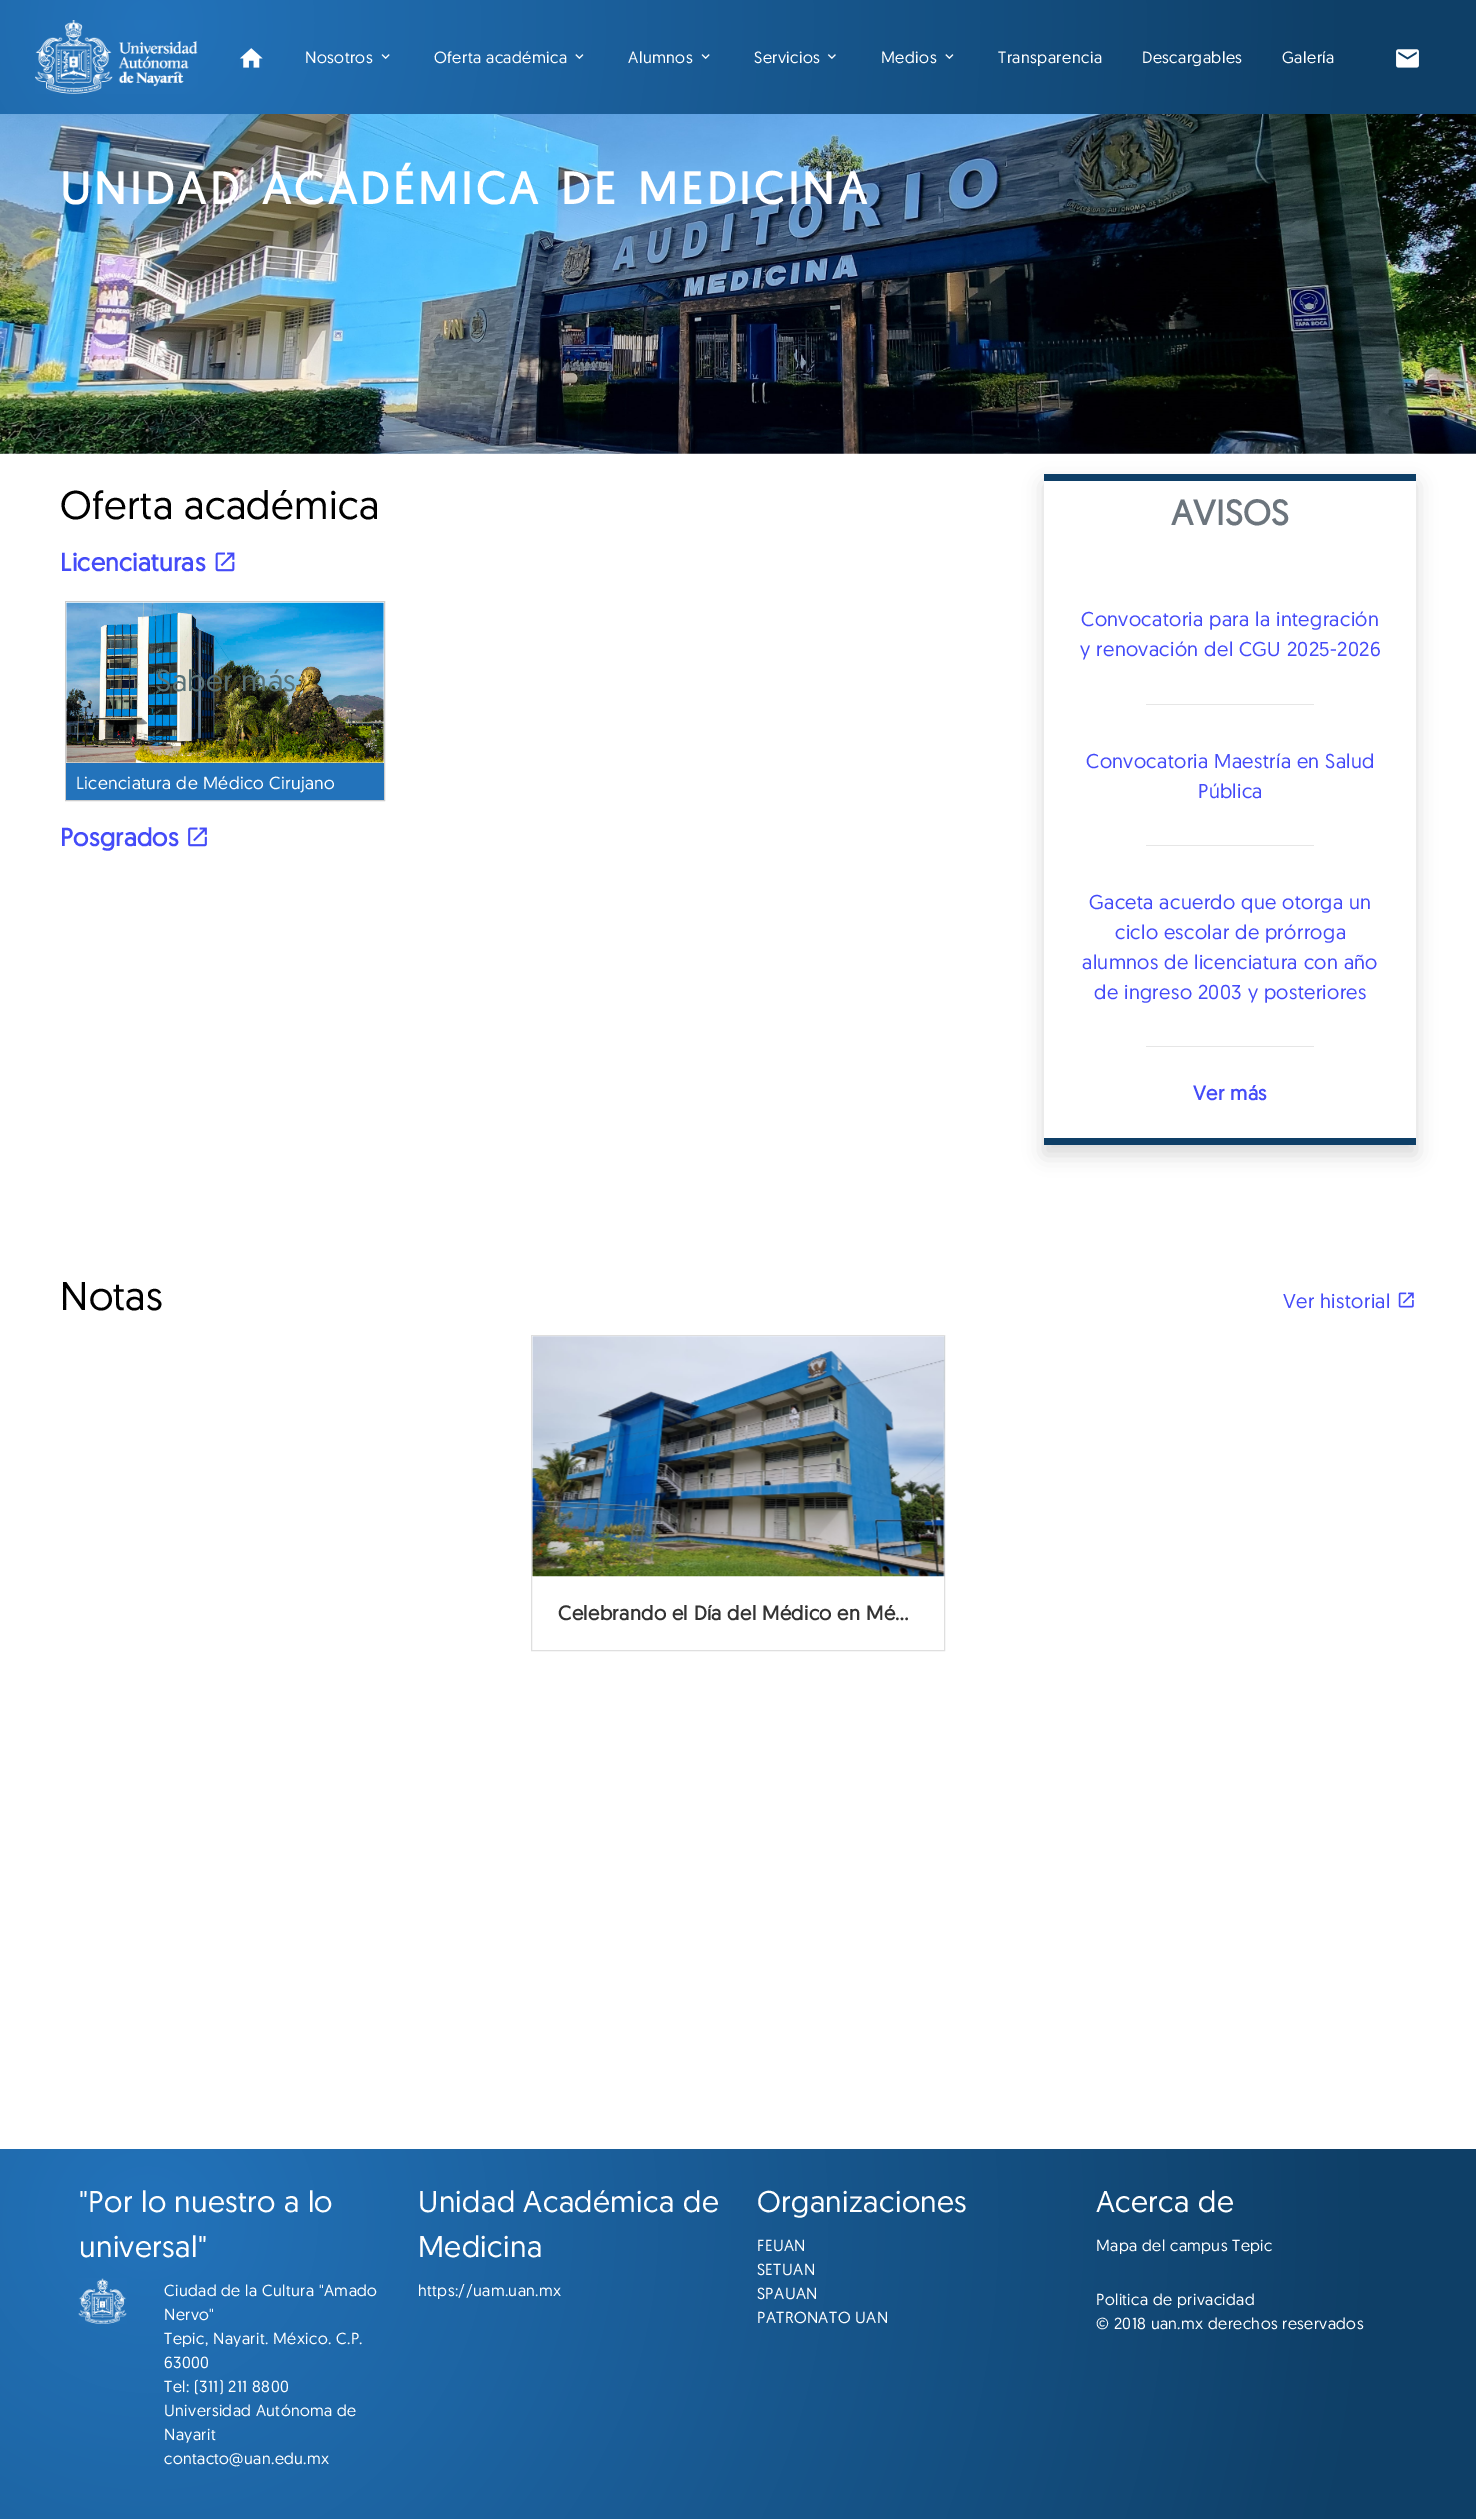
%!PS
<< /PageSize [1476 2519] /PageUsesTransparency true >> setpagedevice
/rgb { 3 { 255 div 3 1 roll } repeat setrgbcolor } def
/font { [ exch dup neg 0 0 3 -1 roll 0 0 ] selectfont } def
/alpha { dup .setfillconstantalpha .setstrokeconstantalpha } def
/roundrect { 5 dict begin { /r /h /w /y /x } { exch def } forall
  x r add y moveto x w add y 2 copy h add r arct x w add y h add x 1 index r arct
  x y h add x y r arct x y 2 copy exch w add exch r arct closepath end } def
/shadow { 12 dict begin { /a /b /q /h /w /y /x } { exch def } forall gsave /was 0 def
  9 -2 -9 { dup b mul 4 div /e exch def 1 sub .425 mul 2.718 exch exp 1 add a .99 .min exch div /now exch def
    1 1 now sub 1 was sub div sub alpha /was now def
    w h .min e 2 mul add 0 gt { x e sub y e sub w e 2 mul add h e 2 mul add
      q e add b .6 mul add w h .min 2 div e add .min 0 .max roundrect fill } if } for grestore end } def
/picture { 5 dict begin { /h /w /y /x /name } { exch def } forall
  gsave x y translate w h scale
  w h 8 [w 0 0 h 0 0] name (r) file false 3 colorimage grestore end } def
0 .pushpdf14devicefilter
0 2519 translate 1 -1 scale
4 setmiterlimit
255 255 255 rgb
0 0 1476 2519 rectfill
gsave 0 0 moveto 1476 0 rlineto 0 114 rlineto -1476 0 rlineto closepath clip newpath 148 23 translate 1332 1332 scale
<< /ShadingType 3 /ColorSpace /DeviceRGB /Coords [0 0 0 0 0 1] /Extend [true true] /Function << /FunctionType 3 /Domain [0 1] /Functions [<< /FunctionType 2 /Domain [0 1] /C0 [0.137 0.451 0.733] /C1 [0.055 0.247 0.404] /N 1 >> << /FunctionType 2 /Domain [0 1] /C0 [0.055 0.247 0.404] /C1 [0.055 0.247 0.404] /N 1 >>] /Bounds [0.9] /Encode [0 1 0 1] >> >> shfill grestore
(img_01.rgb) 35 20 163 74 picture
(img_02.rgb) 239 48 24 20 picture
(img_03.rgb) 381 54 9 5 picture
(img_04.rgb) 575 54 9 5 picture
(img_05.rgb) 701 54 9 5 picture
(img_06.rgb) 827 54 9 5 picture
(img_07.rgb) 945 54 9 5 picture
(img_08.rgb) 1396 49 23 19 picture
(img_09.rgb) 0 114 1476 340 picture
(img_10.rgb) 215 552 20 20 picture
204 204 204 rgb
65.5 601.5 319 199 rectstroke
(img_11.rgb) 66 602 318 161 picture
35 115 187 rgb
66 763 318 37 rectfill
(img_12.rgb) 188 827 19 20 picture
gsave
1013 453 moveto 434 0 rlineto 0 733 rlineto -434 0 rlineto closepath 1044 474 moveto 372 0 rlineto 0 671 rlineto -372 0 rlineto closepath eoclip newpath
0 0 0 rgb
1044 484 372 671 0 10 0.15 shadow
grestore
14 63 103 rgb
1044 474 372 7 rectfill
230 230 230 rgb
1146 704 168 1 rectfill
1146 845 168 1 rectfill
1146 1046 168 1 rectfill
14 63 103 rgb
1044 1138 372 7 rectfill
(img_13.rgb) 1398 1292 16 16 picture
223 223 223 rgb
531.5 1335.5 413 315 rectstroke
(img_14.rgb) 532 1336 413 241 picture
gsave 0 2149 moveto 1476 0 rlineto 0 370 rlineto -1476 0 rlineto closepath clip newpath 148 2223 translate 1361 1361 scale
<< /ShadingType 3 /ColorSpace /DeviceRGB /Coords [0 0 0 0 0 1] /Extend [true true] /Function << /FunctionType 3 /Domain [0 1] /Functions [<< /FunctionType 2 /Domain [0 1] /C0 [0.137 0.451 0.733] /C1 [0.055 0.247 0.404] /N 1 >> << /FunctionType 2 /Domain [0 1] /C0 [0.055 0.247 0.404] /C1 [0.055 0.247 0.404] /N 1 >>] /Bounds [0.9] /Encode [0 1 0 1] >> >> shfill grestore
(img_15.rgb) 78 2278 49 46 picture
/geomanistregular-Regular 16.25 font
255 255 255 rgb
305 63 moveto 0.4 0 (Nosotros) ashow
434 63 moveto 0.4 0 (Oferta académica) ashow
628 63 moveto 0.4 0 (Alumnos) ashow
754 63 moveto 0.4 0 (Servicios) ashow
881 63 moveto 0.4 0 (Medios) ashow
998 63 moveto 0.4 0 (Transparencia) ashow
1142 63 moveto 0.4 0 (Descargables) ashow
1282 63 moveto 0.4 0 (Galería) ashow
/geomanistregular-Bold 45 font
60 204 moveto 4 0 32 4 0 (UNIDAD ACADÉMICA DE MEDICINA) awidthshow
/geomanistregular-Regular 40 font
0 0 0 rgb
60 519 moveto 0.4 0 (Oferta académica) ashow
/geomanistregular-Bold 25 font
68 75 248 rgb
60 571 moveto 0.4 0 (Licenciaturas) ashow
/geomanistregular-Regular 30 font
89 114 119 rgb
156 691 moveto 0.4 0 (Saber más) ashow
/geomanistregular-Regular 17.5 font
255 255 255 rgb
76 789 moveto 0.4 0 (Licenciatura de Médico Cirujano) ashow
/geomanistregular-Bold 25 font
68 75 248 rgb
60 846 moveto 0.4 0 (Posgrados) ashow
/geomanistregular-Bold 35 font
108 117 125 rgb
1171 525 moveto 0.4 0 (AVISOS) ashow
/geomanistregular-Regular 20 font
68 75 248 rgb
1081 626 moveto 0.4 0 (Convocatoria para la integración) ashow
1080 656 moveto 0.4 0 (y renovación del CGU 2025-2026) ashow
1086 768 moveto 0.4 0 (Convocatoria Maestría en Salud) ashow
1198 798 moveto 0.4 0 (Pública) ashow
1089 909 moveto 0.4 0 (Gaceta acuerdo que otorga un) ashow
1115 939 moveto 0.4 0 (ciclo escolar de prórroga) ashow
1082 969 moveto 0.4 0 (alumnos de licenciatura con año) ashow
1094 999 moveto 0.4 0 (de ingreso 2003 y posteriores) ashow
/geomanistregular-Bold 20 font
1193 1100 moveto 0.4 0 (Ver más) ashow
/geomanistregular-Regular 40 font
0 0 0 rgb
60 1310 moveto 0.4 0 (Notas) ashow
/geomanistregular-Regular 20 font
68 75 248 rgb
1283 1308 moveto 0.4 0 (Ver historial) ashow
/geomanistregular-Bold 20 font
51 51 51 rgb
558 1620 moveto 0.4 0 (Celebrando el Día del Médico en Mé…) ashow
/geomanistregular-Regular 30 font
255 255 255 rgb
79 2212 moveto 0.4 0 ("Por lo nuestro a lo) ashow
79 2257 moveto 0.4 0 (universal") ashow
/geomanistregular-Regular 16 font
164 2296 moveto 0.4 0 (Ciudad de la Cultura "Amado) ashow
164 2320 moveto 0.4 0 (Nervo") ashow
164 2344 moveto 0.4 0 (Tepic, Nayarit. México. C.P.) ashow
164 2368 moveto 0.4 0 (63000) ashow
164 2392 moveto 0.4 0 (Tel: \(311\) 211 8800) ashow
164 2416 moveto 0.4 0 (Universidad Autónoma de) ashow
164 2440 moveto 0.4 0 (Nayarit) ashow
164 2464 moveto 0.4 0 (contacto@uan.edu.mx) ashow
/geomanistregular-Regular 30 font
418 2212 moveto 0.4 0 (Unidad Académica de) ashow
418 2257 moveto 0.4 0 (Medicina) ashow
/geomanistregular-Regular 16 font
418 2296 moveto 0.4 0 (https://uam.uan.mx) ashow
/geomanistregular-Regular 30 font
757 2212 moveto 0.4 0 (Organizaciones) ashow
/geomanistregular-Regular 16 font
757 2251 moveto 0.4 0 (FEUAN) ashow
757 2275 moveto 0.4 0 (SETUAN) ashow
757 2299 moveto 0.4 0 (SPAUAN) ashow
757 2323 moveto 0.4 0 (PATRONATO UAN) ashow
/geomanistregular-Regular 30 font
1096 2212 moveto 0.4 0 (Acerca de) ashow
/geomanistregular-Regular 16 font
1096 2251 moveto 0.4 0 (Mapa del campus Tepic) ashow
1096 2305 moveto 0.4 0 (Politica de privacidad) ashow
1096 2329 moveto 0.4 0 (© 2018 uan.mx derechos reservados) ashow
.poppdf14devicefilter showpage
